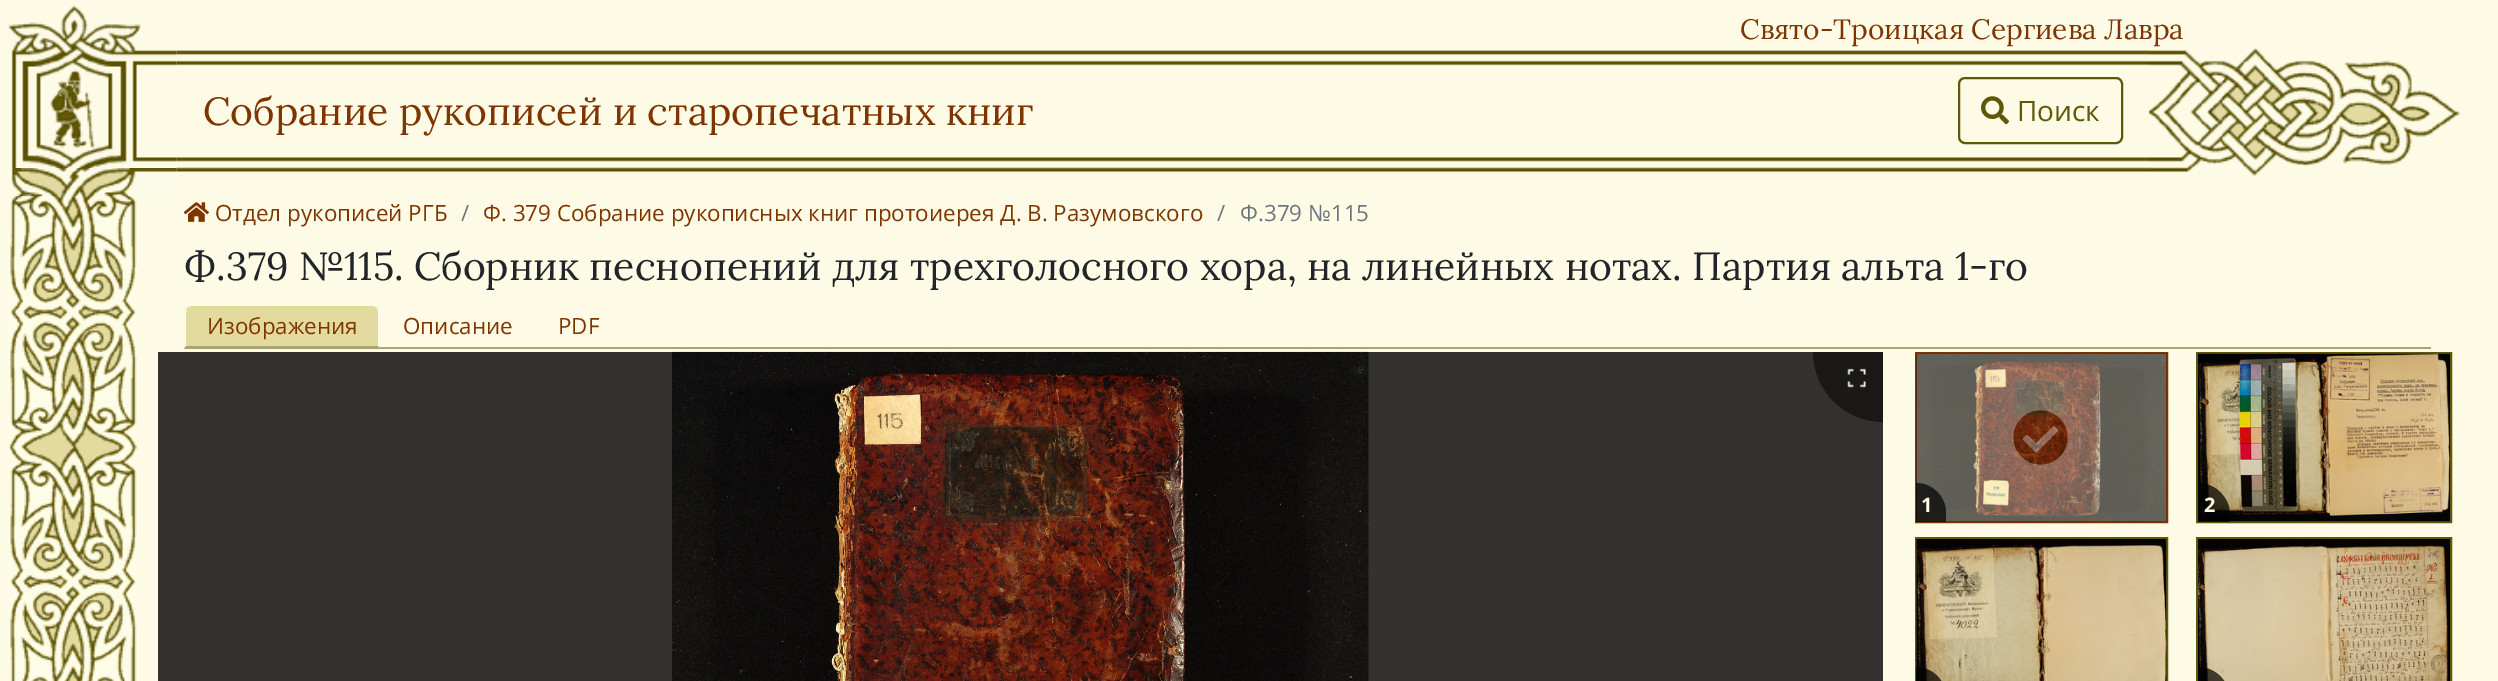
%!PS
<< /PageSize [2498 681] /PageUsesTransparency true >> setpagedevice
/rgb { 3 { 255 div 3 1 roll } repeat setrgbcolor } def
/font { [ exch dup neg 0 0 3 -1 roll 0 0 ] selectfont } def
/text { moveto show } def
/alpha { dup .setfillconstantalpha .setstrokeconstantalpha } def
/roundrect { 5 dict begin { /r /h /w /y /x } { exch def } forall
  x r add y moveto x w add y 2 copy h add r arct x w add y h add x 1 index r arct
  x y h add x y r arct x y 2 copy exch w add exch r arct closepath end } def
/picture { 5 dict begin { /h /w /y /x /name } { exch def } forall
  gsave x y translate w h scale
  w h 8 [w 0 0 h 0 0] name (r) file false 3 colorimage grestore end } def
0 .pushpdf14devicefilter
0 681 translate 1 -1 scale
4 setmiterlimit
253 251 230 rgb
0 0 2498 681 rectfill
(img_01.rgb) 8 196 129 485 picture
(img_02.rgb) 8 0 169 168 picture
(img_03.rgb) 8 168 169 28 picture
(img_04.rgb) 176 50 1973 122 picture
96 87 8 rgb
2 setlinewidth
1959 78 163 65 6 roundrect stroke
(img_05.rgb) 1981 96 28 29 picture
(img_06.rgb) 2149 48 312 128 picture
(img_07.rgb) 183 202 26 20 picture
171 165 114 rgb
184 347 2247 2 rectfill
227 218 160 rgb
191 305 moveto 182 0 rlineto 4 0 7 3 7 7 rcurveto 0 36 rlineto -196 0 rlineto 0 -36 rlineto 0 -4 3 -7 7 -7 rcurveto closepath fill
253 251 230 rgb
191 306 moveto -2 0 -3 1 -4 2 rcurveto -1 -1 rlineto 7 -9 22 -3 34 -3 rcurveto 155 0 rlineto 3 2 rlineto -1 2 rlineto -1 -1 -3 -2 -4 -2 rcurveto closepath fill
380 348 moveto -2 -2 rlineto 0 -34 rlineto 0 -2 -1 -3 -1 -4 rcurveto 1 -2 rlineto 2 4 rlineto closepath fill
171 165 114 rgb
380 348 moveto -196 0 rlineto 2 -2 rlineto 192 0 rlineto closepath fill
253 251 230 rgb
184 348 moveto 2 -2 rlineto 0 -34 rlineto 0 -1 0 -3 1 -4 rcurveto -1 -1 rlineto -1 1 -2 3 -2 5 rcurveto closepath fill
51 50 46 rgb
158 352 1725 329 rectfill
(img_08.rgb) 672 351 697 330 picture
26 25 23 rgb
1813 352 moveto 70 0 rlineto 0 70 rlineto -38.5 0 -70 -31.5 -70 -70 rcurveto closepath fill
(img_09.rgb) 1847 368 19 20 picture
127 53 0 rgb
1916 353 251 169 rectstroke
(img_11.rgb) 2013 410 55 55 picture
(img_10.rgb) 1916 353 251 169 picture
0.7 alpha
0 0 0 rgb
1916 483 moveto 16.5 0 30 13.5 30 30 rcurveto 0 9 rlineto -30 0 rlineto closepath fill
1 alpha
96 87 8 rgb
2197 353 254 169 rectstroke
(img_12.rgb) 2198 353 252 169 picture
0.7 alpha
0 0 0 rgb
2198 483 moveto 17.5 0 32 14.5 32 32 rcurveto 0 7 rlineto -32 0 rlineto closepath fill
1 alpha
96 87 8 rgb
1916 538 251 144 rectstroke
(img_13.rgb) 1916 539 251 142 picture
0.7 alpha
0 0 0 rgb
1916 667 moveto 16.5 0 30 13.5 30 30 rcurveto 0 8 rlineto -30 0 rlineto closepath fill
1 alpha
96 87 8 rgb
2197 538 254 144 rectstroke
(img_14.rgb) 2198 539 252 142 picture
0.7 alpha
0 0 0 rgb
2198 667 moveto 17.5 0 32 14.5 32 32 rcurveto 0 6 rlineto -32 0 rlineto closepath fill
/Lora-Regular 28 font
1 alpha
127 53 0 rgb
(Свято-Троицкая Сергиева Лавра) 1740 39 text
/Lora-Regular 39.2 font
(Собрание рукописей и старопечатных книг) 203 125 text
/OpenSans-Regular 28 font
96 87 8 rgb
(Поиск) 2017 121 text
/OpenSans-Regular 22.4 font
127 53 0 rgb
(Отдел рукописей РГБ) 215 221 text
108 117 125 rgb
(/) 461 221 text
127 53 0 rgb
(Ф. 379 Собрание рукописных книг протоиерея Д. В. Разумовского) 483 221 text
108 117 125 rgb
(/) 1217 221 text
(Ф.379 №115) 1240 221 text
/Lora-Regular 39.2 font
33 37 41 rgb
(Ф.379 №115. Сборник песнопений для трехголосного хора, на линейных нотах. Партия альта 1-го) 184 280 text
/OpenSans-Regular 22.4 font
127 53 0 rgb
(Изображения) 207 334 text
(Описание) 403 334 text
(PDF) 558 334 text
/OpenSans-Bold 20 font
253 251 230 rgb
(1) 1921 512 text
(2) 2204 512 text
.poppdf14devicefilter showpage
